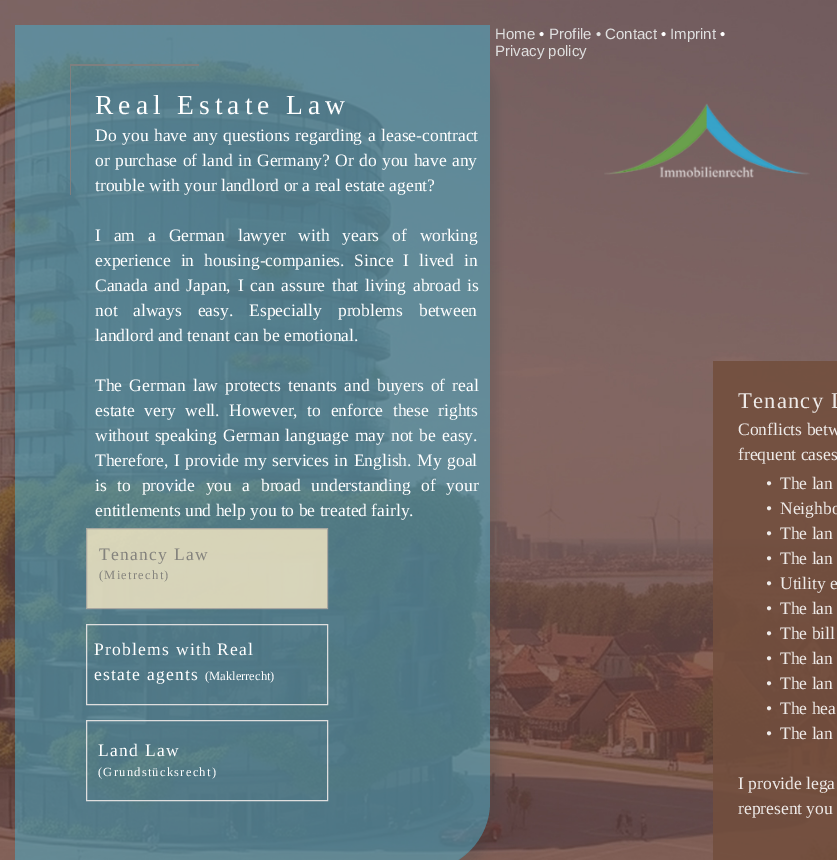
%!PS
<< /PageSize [837 860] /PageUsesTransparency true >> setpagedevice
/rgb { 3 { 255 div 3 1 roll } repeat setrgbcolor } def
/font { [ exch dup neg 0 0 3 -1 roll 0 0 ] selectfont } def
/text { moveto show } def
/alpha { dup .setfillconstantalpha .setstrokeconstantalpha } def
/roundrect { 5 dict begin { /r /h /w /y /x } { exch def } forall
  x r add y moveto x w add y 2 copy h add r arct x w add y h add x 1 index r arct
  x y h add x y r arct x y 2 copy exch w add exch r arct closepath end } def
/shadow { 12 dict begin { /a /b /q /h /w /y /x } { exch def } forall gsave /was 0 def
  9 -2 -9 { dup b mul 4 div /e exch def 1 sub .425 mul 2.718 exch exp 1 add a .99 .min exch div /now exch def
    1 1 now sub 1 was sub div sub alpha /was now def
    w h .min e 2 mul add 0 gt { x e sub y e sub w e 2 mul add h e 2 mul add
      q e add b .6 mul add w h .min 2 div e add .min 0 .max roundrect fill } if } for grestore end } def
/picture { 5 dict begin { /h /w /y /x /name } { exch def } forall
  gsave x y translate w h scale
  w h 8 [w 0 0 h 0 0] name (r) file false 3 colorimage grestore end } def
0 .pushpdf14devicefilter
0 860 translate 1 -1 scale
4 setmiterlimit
255 255 255 rgb
0 0 837 860 rectfill
(img_01.rgb) 0 0 837 860 picture
gsave
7 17 moveto 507 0 rlineto 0 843 rlineto -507 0 rlineto closepath 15 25 moveto 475 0 rlineto 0 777 rlineto 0 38 -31 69 -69 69 rcurveto -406 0 rlineto closepath eoclip newpath
76 76 76 rgb
23 33 475 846 69 5 0.28 shadow
grestore
0.55 alpha
75 170 198 rgb
15 25 moveto 475 0 rlineto 0 777 rlineto 0 38 -31 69 -69 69 rcurveto -406 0 rlineto closepath fill
1 alpha
127 127 127 rgb
70 64 129 2 rectfill
70 66 1 129 rectfill
(img_02.rgb) 604 103 206 75 picture
0.77 alpha
255 239 200 rgb
86 528 242 81 rectfill
153 153 153 rgb
86.5 528.5 241 80 rectstroke
1 alpha
222 222 222 rgb
86.5 624.5 241 80 rectstroke
86.5 720.5 241 80 rectstroke
0.88 alpha
114 78 61 rgb
713 361 124 499 rectfill
/LiberationSans-Regular 15 font
1 alpha
224 224 224 rgb
(Home) 495 39 text
255 255 255 rgb
(•) 539 39 text
224 224 224 rgb
(Profile • Contact) 549 39 text
255 255 255 rgb
(•) 661 39 text
224 224 224 rgb
(Imprint) 670 39 text
255 255 255 rgb
(•) 720 39 text
224 224 224 rgb
(Privacy policy) 495 56 text
/LiberationSerif-Regular 27.5 font
255 255 255 rgb
95 114 moveto 5 0 (Real Estate Law) ashow
/LiberationSerif-Regular 17.5 font
95 141 moveto 1.25 0 32 (Do you have any questions regarding a lease-contract) widthshow
95 166 moveto 1 0 32 (or purchase of land in Germany? Or do you have any) widthshow
(trouble with your landlord or a real estate agent?) 95 191 text
95 241 moveto 8.5 0 32 (I am a German lawyer with years of working) widthshow
95 266 moveto 5.5 0 32 (experience in housing-companies. Since I lived in) widthshow
95 291 moveto 2.5 0 32 (Canada and Japan, I can assure that living abroad is) widthshow
95 316 moveto 11.5 0 32 (not always easy. Especially problems between) widthshow
(landlord and tenant can be emotional.) 95 341 text
95 391 moveto 2.75 0 32 (The German law protects tenants and buyers of real) widthshow
95 416 moveto 5.25 0 32 (estate very well. However, to enforce these rights) widthshow
95 441 moveto 1.75 0 32 (without speaking German language may not be easy.) widthshow
95 466 moveto 1.25 0 32 (Therefore, I provide my services in English. My goal) widthshow
95 491 moveto 6.25 0 32 (is to provide you a broad understanding of your) widthshow
(entitlements und help you to be treated fairly.) 95 516 text
132 131 125 rgb
99 560 moveto 1.25 0 (Tenancy Law) ashow
/LiberationSerif-Regular 12.5 font
99 579 moveto 1.25 0 (\(Mietrecht\)) ashow
/LiberationSerif-Regular 17.5 font
255 255 255 rgb
94 655 moveto 1.25 0 (Problems with Real) ashow
94 680 moveto 1.25 0 (estate agents) ashow
/LiberationSerif-Regular 12.5 font
(\(Maklerrecht\)) 205 680 text
/LiberationSerif-Regular 17.5 font
98 756 moveto 1.25 0 (Land Law) ashow
/LiberationSerif-Regular 12.5 font
98 776 moveto 1.25 0 (\(Grundstücksrecht\)) ashow
/LiberationSerif-Regular 22.5 font
238 234 232 rgb
738 408 moveto 1.25 0 (Tenancy L) ashow
/LiberationSerif-Regular 17.5 font
(Conflicts betw) 738 435 text
(frequent cases) 738 460 text
(•) 766 489 text
(The lan) 780 489 text
(•) 766 514 text
(Neighbo) 780 514 text
(•) 766 539 text
(The lan) 780 539 text
(•) 766 564 text
(The lan) 780 564 text
(•) 766 589 text
(Utility e) 780 589 text
(•) 766 614 text
(The lan) 780 614 text
(•) 766 639 text
(The bill) 780 639 text
(•) 766 664 text
(The lan) 780 664 text
(•) 766 689 text
(The lan) 780 689 text
(•) 766 714 text
(The hea) 780 714 text
(•) 766 739 text
(The lan) 780 739 text
(I provide lega) 738 789 text
(represent you) 738 814 text
.poppdf14devicefilter showpage
